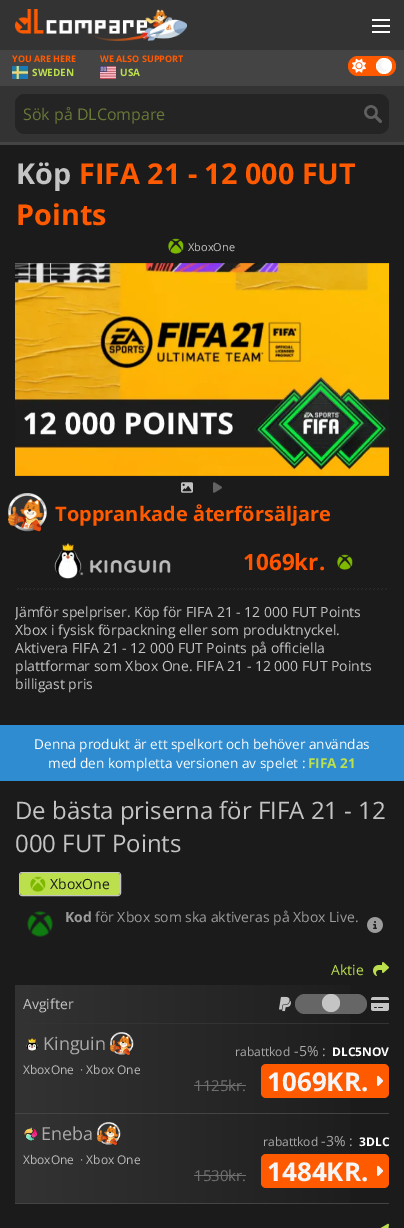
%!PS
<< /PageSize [404 1228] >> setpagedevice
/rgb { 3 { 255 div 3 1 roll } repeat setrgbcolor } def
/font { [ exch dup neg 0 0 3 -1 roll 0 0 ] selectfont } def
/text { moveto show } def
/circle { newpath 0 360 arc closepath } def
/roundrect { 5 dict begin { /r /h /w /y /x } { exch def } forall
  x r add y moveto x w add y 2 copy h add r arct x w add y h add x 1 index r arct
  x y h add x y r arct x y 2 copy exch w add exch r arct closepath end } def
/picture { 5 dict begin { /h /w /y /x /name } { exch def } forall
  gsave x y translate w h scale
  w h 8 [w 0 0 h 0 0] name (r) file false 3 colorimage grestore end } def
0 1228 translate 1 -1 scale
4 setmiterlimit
68 68 68 rgb
0 0 404 1228 rectfill
51 51 51 rgb
0 0 404 50 rectfill
(img_01.rgb) 15 9 172 32 picture
255 255 255 rgb
372 31 18 2 rectfill
372 25 18 2 rectfill
372 19 18 2 rectfill
(img_02.rgb) 12 66 16 13 picture
(img_03.rgb) 100 66 16 13 picture
255 90 0 rgb
348 56 48 20 10 roundrect fill
(img_04.rgb) 352 58 14 15 picture
255 255 255 rgb
384 66 8 circle fill
(img_05.rgb) 377 60 10 12 picture
51 51 51 rgb
0 86 404 56 rectfill
36 36 36 rgb
15 94 374 40 10 roundrect fill
(img_06.rgb) 364 105 18 18 picture
27 27 27 rgb
0 145 404 580 rectfill
(img_07.rgb) 168 238 16 16 picture
(img_08.rgb) 15 263 374 213 picture
(img_09.rgb) 181 482 12 11 picture
(img_10.rgb) 213 482 9 11 picture
(img_11.rgb) 8 493 39 40 picture
(img_12.rgb) 54 543 117 36 picture
(img_07.rgb) 337 554 16 16 picture
(img_13.rgb) 17 588 370 2 picture
47 140 208 rgb
0 725 404 56 rectfill
27 27 27 rgb
0 781 404 447 rectfill
196 196 196 rgb
19.5 872.5 101 23 2.5 roundrect stroke
187 223 77 rgb
20 873 100 22 3 roundrect fill
(img_14.rgb) 30 876 16 16 picture
(img_15.rgb) 27 911 26 26 picture
(img_16.rgb) 367 917 16 16 picture
(img_17.rgb) 373 962 16 14 picture
gsave 15 985 moveto 335 0 rlineto 0 38 rlineto -335 0 rlineto closepath clip newpath
<< /ShadingType 2 /ColorSpace /DeviceRGB /Coords [15 1004 389 1004] /Extend [true true] /Function << /FunctionType 2 /Domain [0 1] /C0 [0.2 0.2 0.2] /C1 [0.106 0.106 0.106] /N 1 >> >> shfill grestore
51 51 51 rgb
15 1023 374 1 rectfill
(img_18.rgb) 279 996 12 16 picture
102 102 102 rgb
295 994 72 20 10 roundrect fill
196 196 196 rgb
331 1003 9 circle fill
(img_19.rgb) 371 997 18 14 picture
gsave 15 1024 moveto 335 0 rlineto 0 89 rlineto -335 0 rlineto closepath clip newpath
<< /ShadingType 2 /ColorSpace /DeviceRGB /Coords [15 1069 389 1069] /Extend [true true] /Function << /FunctionType 2 /Domain [0 1] /C0 [0.2 0.2 0.2] /C1 [0.106 0.106 0.106] /N 1 >> >> shfill grestore
68 68 68 rgb
15 1113 374 1 rectfill
(img_20.rgb) 26 1038 12 13 picture
(img_21.rgb) 110 1032 24 24 picture
112 112 112 rgb
194 1085 52 1 rectfill
255 90 0 rgb
261 1064 128 34 5 roundrect fill
(img_22.rgb) 377 1075 7 11 picture
gsave 15 1114 moveto 335 0 rlineto 0 89 rlineto -335 0 rlineto closepath clip newpath
<< /ShadingType 2 /ColorSpace /DeviceRGB /Coords [15 1159 389 1159] /Extend [true true] /Function << /FunctionType 2 /Domain [0 1] /C0 [0.2 0.2 0.2] /C1 [0.106 0.106 0.106] /N 1 >> >> shfill grestore
68 68 68 rgb
15 1203 374 1 rectfill
(img_23.rgb) 24 1127 14 14 picture
(img_24.rgb) 97 1122 24 24 picture
112 112 112 rgb
194 1175 52 1 rectfill
255 90 0 rgb
261 1154 128 34 5 roundrect fill
(img_22.rgb) 377 1165 7 11 picture
(img_25.rgb) 380 1223 9 5 picture
/OpenSans-Bold 9 font
(YOU ARE HERE) 12 62 text
/OpenSans-Bold 10 font
187 223 77 rgb
(SWEDEN) 32 76 text
/OpenSans-Bold 9 font
255 90 0 rgb
(WE ALSO SUPPORT) 100 62 text
/OpenSans-Bold 10 font
187 223 77 rgb
(USA) 120 76 text
/OpenSans-Regular 16 font
105 121 55 rgb
(Sök på DLCompare) 23 120 text
/OpenSans-Bold 28.75 font
196 196 196 rgb
(Köp) 16 184 text
255 90 0 rgb
(FIFA 21 - 12 000 FUT) 79 184 text
(Points) 16 225 text
/OpenSans-Regular 11 font
196 196 196 rgb
(XboxOne) 188 251 text
/OpenSans-Bold 20 font
255 90 0 rgb
(Topprankade återförsäljare) 55 521 text
/OpenSans-Bold 22.5 font
255 84 0 rgb
(1069kr.) 243 570 text
gsave
15 595 374 127 rectclip
/OpenSans-Regular 14 font
196 196 196 rgb
(Jämför spelpriser. Köp för FIFA 21 - 12 000 FUT Points) 15 617 text
grestore
/OpenSans-Regular 14 font
196 196 196 rgb
(Xbox i fysisk förpackning eller som produktnyckel.) 15 635 text
(Aktivera FIFA 21 - 12 000 FUT Points på officiella) 15 653 text
(plattformar som Xbox One. FIFA 21 - 12 000 FUT Points) 15 671 text
(billigast pris) 15 689 text
/OpenSans-Regular 13.6 font
255 255 255 rgb
(Denna produkt är ett spelkort och behöver användas) 34 749 text
(med den kompletta versionen av spelet :) 48 768 text
/OpenSans-Bold 13.6 font
187 223 77 rgb
(FIFA 21) 308 768 text
/OpenSans-Regular 24 font
196 196 196 rgb
(De bästa priserna för FIFA 21 - 12) 15 819 text
(000 FUT Points) 15 852 text
/OpenSans-Regular 14 font
27 27 27 rgb
(XboxOne) 50 889 text
/OpenSans-Bold 14 font
156 156 156 rgb
(Kod) 65 922 text
/OpenSans-Regular 14 font
(för Xbox som ska aktiveras på Xbox Live.) 95 922 text
187 223 77 rgb
(Aktie) 331 975 text
196 196 196 rgb
(Avgifter) 23 1009 text
/OpenSans-Regular 18 font
170 170 170 rgb
(Kinguin) 43 1050 text
/OpenSans-Regular 12 font
187 187 187 rgb
(XboxOne) 23 1074 text
(· Xbox One) 80 1074 text
170 170 170 rgb
(rabattkod) 235 1056 text
/OpenSans-Regular 14 font
(-5% :) 294 1056 text
/OpenSans-Bold 12 font
255 255 255 rgb
(DLC5NOV) 332 1056 text
/OpenSans-Regular 15 font
112 112 112 rgb
(1125kr.) 194 1091 text
/OpenSans-Bold 26 font
245 245 245 rgb
(1069KR.) 267 1091 text
/OpenSans-Regular 18 font
170 170 170 rgb
(Eneba) 41 1140 text
/OpenSans-Regular 12 font
187 187 187 rgb
(XboxOne) 23 1164 text
(· Xbox One) 80 1164 text
170 170 170 rgb
(rabattkod) 263 1146 text
/OpenSans-Regular 14 font
(-3% :) 321 1146 text
/OpenSans-Bold 12 font
255 255 255 rgb
(3DLC) 359 1146 text
/OpenSans-Regular 15 font
112 112 112 rgb
(1530kr.) 194 1181 text
/OpenSans-Bold 26 font
245 245 245 rgb
(1484KR.) 267 1181 text
showpage
